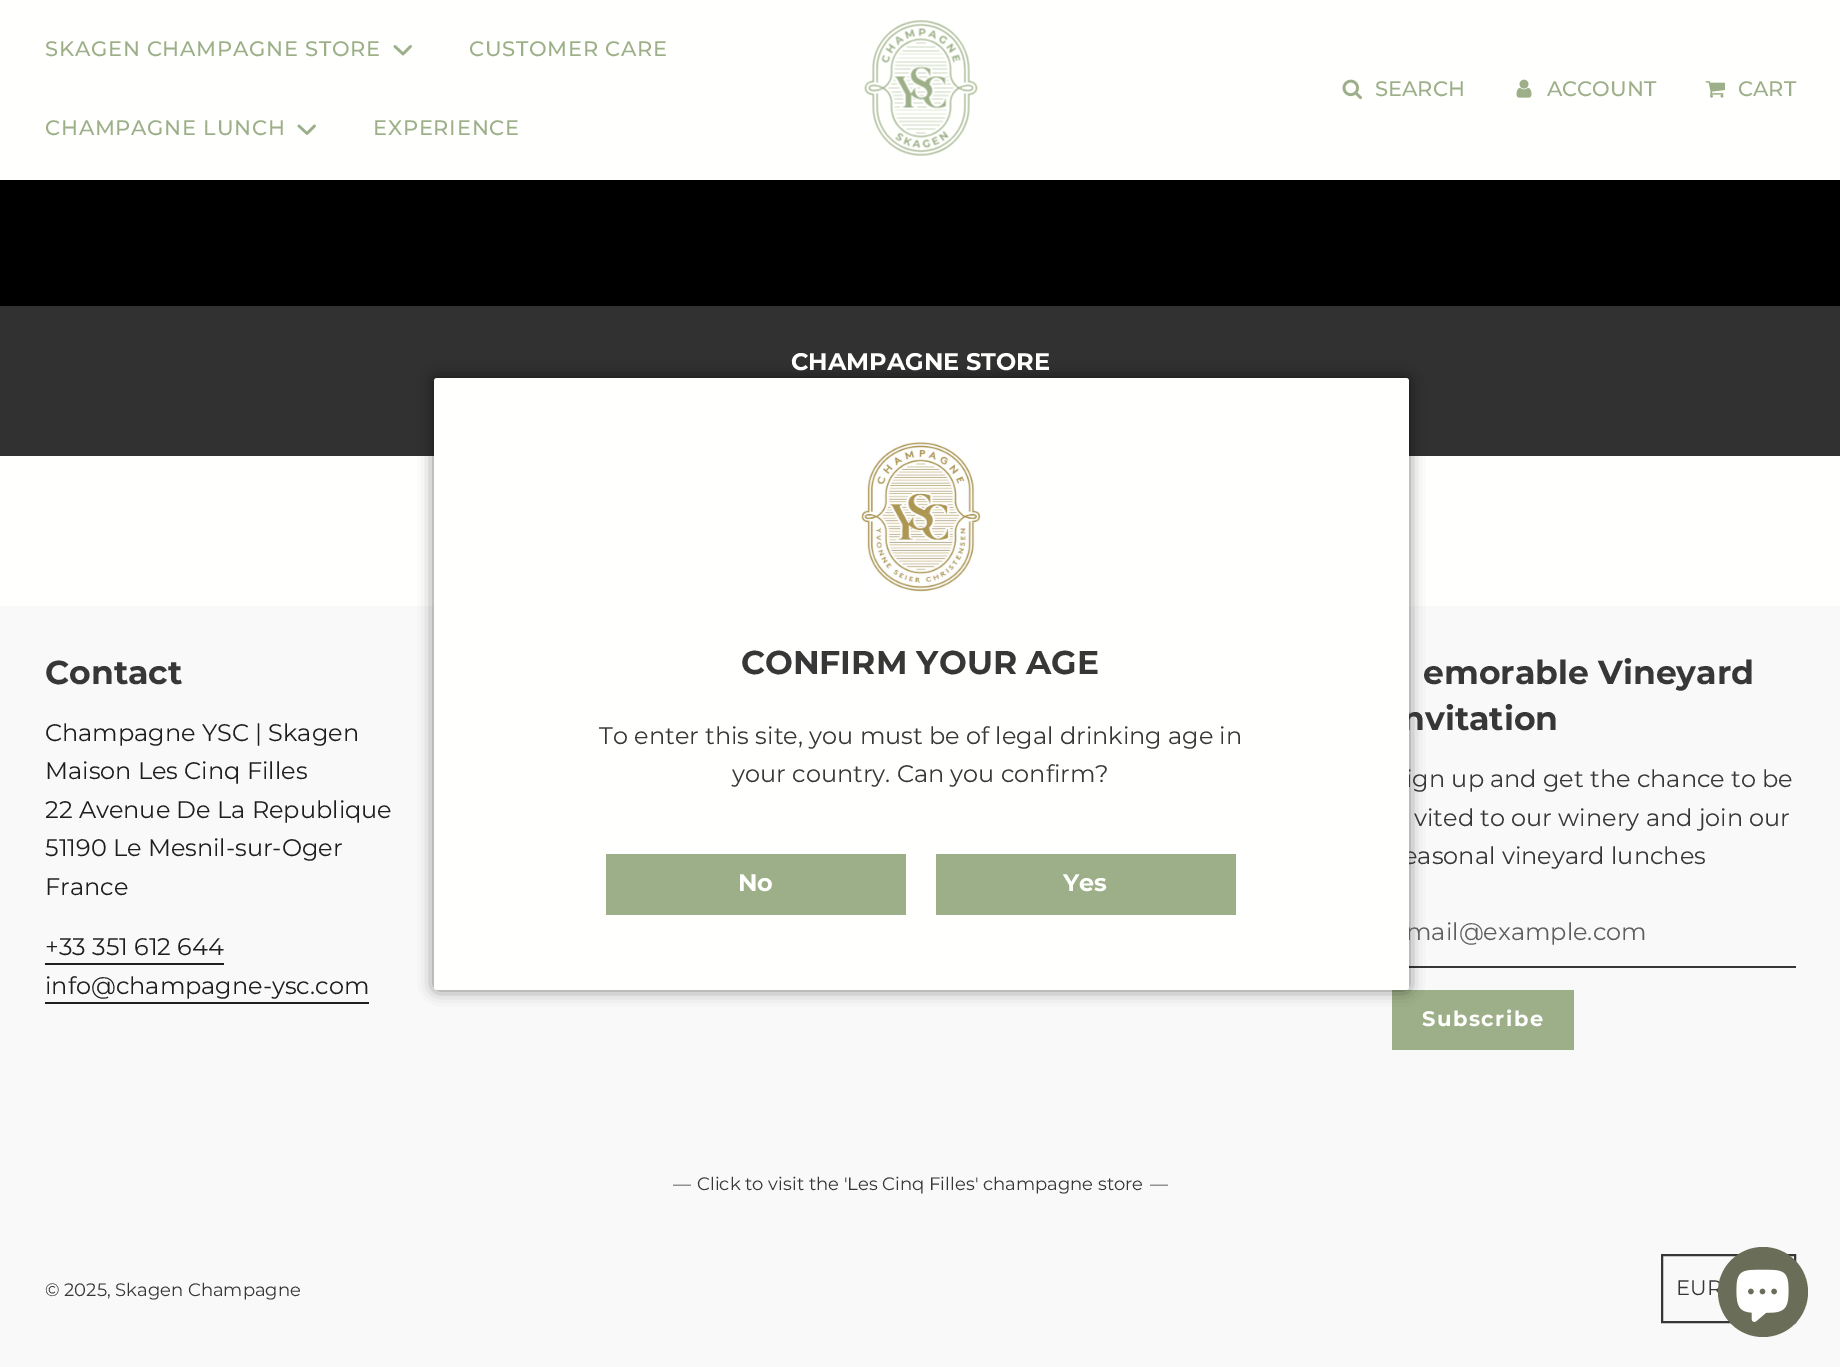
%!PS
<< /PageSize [1840 1367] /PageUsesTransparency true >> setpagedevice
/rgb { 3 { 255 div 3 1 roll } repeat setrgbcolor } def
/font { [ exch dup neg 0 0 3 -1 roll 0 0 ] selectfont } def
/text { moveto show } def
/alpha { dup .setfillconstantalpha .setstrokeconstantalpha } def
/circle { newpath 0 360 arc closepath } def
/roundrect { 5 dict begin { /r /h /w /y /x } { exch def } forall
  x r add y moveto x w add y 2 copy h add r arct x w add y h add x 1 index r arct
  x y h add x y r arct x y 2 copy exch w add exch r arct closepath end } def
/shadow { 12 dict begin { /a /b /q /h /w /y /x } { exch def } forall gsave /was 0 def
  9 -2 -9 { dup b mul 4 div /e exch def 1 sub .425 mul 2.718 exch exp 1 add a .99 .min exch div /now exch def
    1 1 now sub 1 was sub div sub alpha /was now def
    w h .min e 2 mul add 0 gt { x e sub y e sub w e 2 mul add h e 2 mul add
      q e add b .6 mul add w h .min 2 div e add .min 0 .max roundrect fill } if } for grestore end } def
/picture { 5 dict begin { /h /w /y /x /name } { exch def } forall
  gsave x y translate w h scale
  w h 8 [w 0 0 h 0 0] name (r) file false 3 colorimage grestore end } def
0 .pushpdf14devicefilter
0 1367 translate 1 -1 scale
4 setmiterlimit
255 255 253 rgb
0 0 1840 1367 rectfill
156 175 136 rgb
2.6 setlinewidth
1 setlinecap
1 setlinejoin
395 46.5 moveto 8 7.5 rlineto 7.5 -7.5 rlineto stroke
299 126 moveto 8 7.5 rlineto 7.5 -7.5 rlineto stroke
(img_01.rgb) 864 20 114 136 picture
(img_02.rgb) 1342 79 20 21 picture
(img_03.rgb) 1516 79 16 19 picture
(img_04.rgb) 1705 81 20 17 picture
0 0 0 rgb
0 180 1840 126 rectfill
50 49 49 rgb
0 306 1840 150 rectfill
249 249 249 rgb
0 606 1840 761 rectfill
55 55 55 rgb
1409 966 387 2 rectfill
156 175 136 rgb
1392 990 182 60 rectfill
0 0 0 rgb
434 378 975 612 3 7.5 0.5 shadow
30 30 30 rgb
45 963 179 2 rectfill
45 1002 324 2 rectfill
55 55 55 rgb
2 setlinewidth
0 setlinecap
0 setlinejoin
1662 1255 133 67 rectstroke
/Montserrat-Medium 21 font
156 175 136 rgb
45 56 moveto 0.75 0 (SKAGEN CHAMPAGNE STORE) ashow
469 56 moveto 0.75 0 (CUSTOMER CARE) ashow
45 135 moveto 0.75 0 (CHAMPAGNE LUNCH) ashow
373 135 moveto 0.75 0 (EXPERIENCE) ashow
(SEARCH) 1375 96 text
(ACCOUNT) 1547 96 text
(CART) 1738 96 text
/Montserrat-Bold 24 font
255 255 253 rgb
(CHAMPAGNE STORE) 791 370 text
/Montserrat-Bold 33.1 font
55 55 55 rgb
(Contact) 45 684 text
/Montserrat-Regular 24 font
30 30 30 rgb
(Champagne YSC | Skagen) 45 741 text
(Maison Les Cinq Filles) 45 779 text
(22 Avenue De La Republique) 45 818 text
(51190 Le Mesnil-sur-Oger) 45 856 text
(France) 45 895 text
(+33 351 612 644) 45 955 text
(info@champagne-ysc.com) 45 994 text
/Montserrat-Bold 33.1 font
55 55 55 rgb
(emorable Vineyard) 1423 684 text
(nvitation) 1402 730 text
/Montserrat-Regular 24 font
(ign up and get the chance to be) 1406 787 text
(vited to our winery and join our) 1414 826 text
(easonal vineyard lunches) 1403 864 text
94 94 94 rgb
(mail@example.com) 1406 940 text
255 255 253 rgb
434 378 975 612 3 roundrect fill
156 175 136 rgb
936 854 300 61 rectfill
/Montserrat-Bold 24 font
255 255 253 rgb
(Yes) 1063 891 text
156 175 136 rgb
606 854 300 61 rectfill
255 255 253 rgb
(No) 738 891 text
/Montserrat-Regular 24 font
55 55 55 rgb
(your country. Can you confirm?) 732 782 text
(To enter this site, you must be of legal drinking age in) 599 744 text
/Montserrat-Bold 33 font
(CONFIRM YOUR AGE) 741 674 text
(img_05.rgb) 861 441 120 151 picture
/Montserrat-Bold 21 font
255 255 253 rgb
1422 1026 moveto 1.5 0 (Subscribe) ashow
/Montserrat-Regular 18 font
55 55 55 rgb
(—) 673 1190 text
(Click to visit the 'Les Cinq Filles' champagne store) 697 1190 text
(—) 1150 1190 text
(© 2025, Skagen Champagne) 45 1296 text
/Montserrat-Regular 21 font
(EUR) 1676 1295 text
106 109 88 rgb
1763 1292 45 circle fill
(img_06.rgb) 1736 1269 53 53 picture
.poppdf14devicefilter showpage
